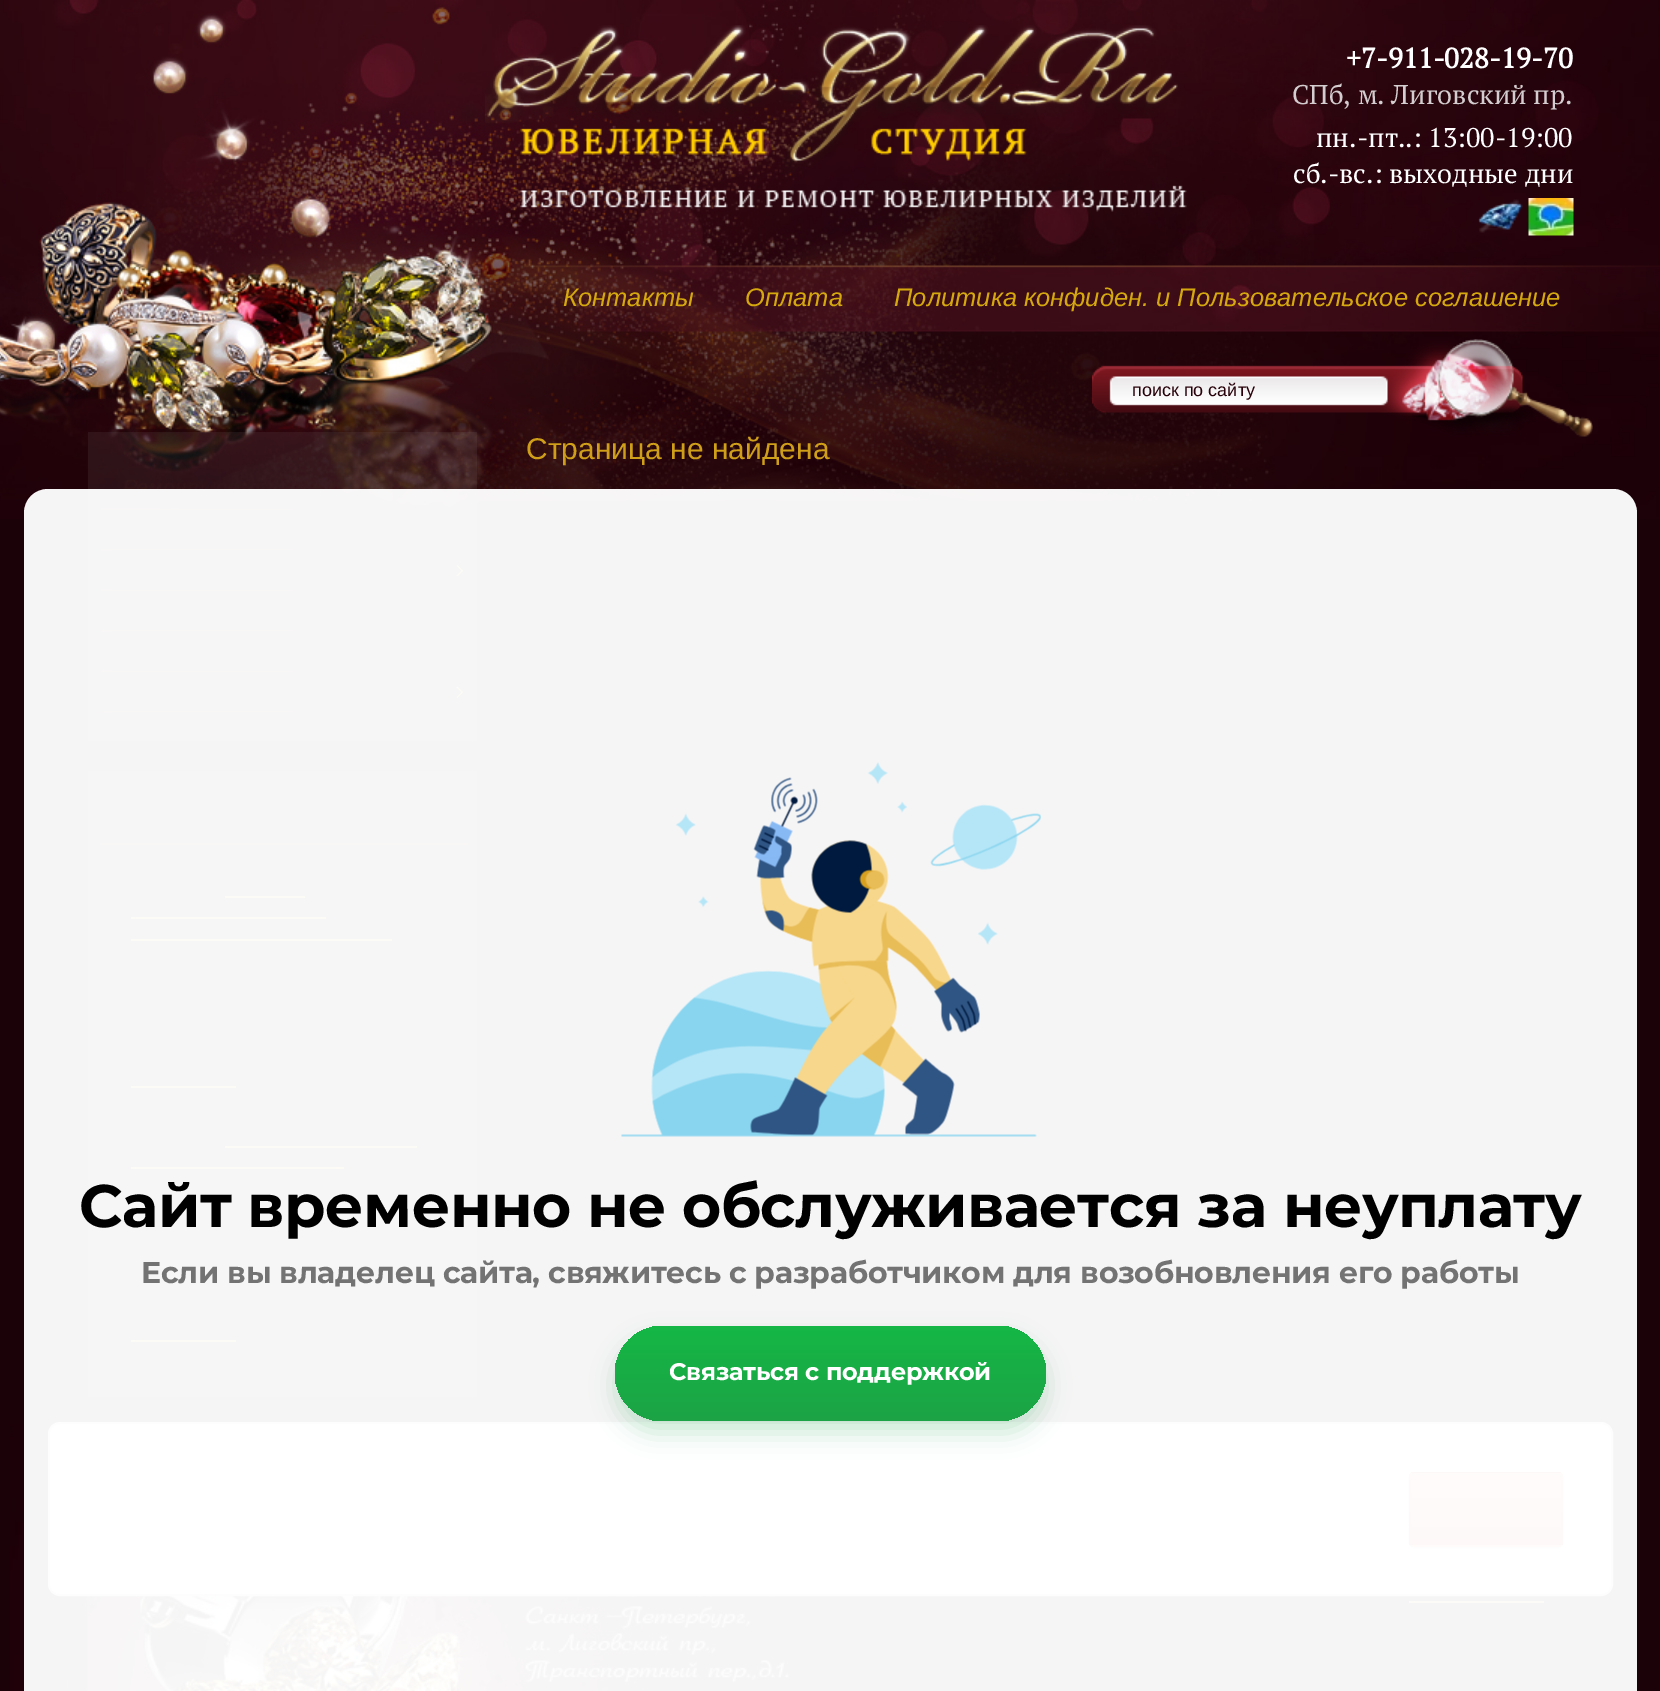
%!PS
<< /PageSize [1660 1691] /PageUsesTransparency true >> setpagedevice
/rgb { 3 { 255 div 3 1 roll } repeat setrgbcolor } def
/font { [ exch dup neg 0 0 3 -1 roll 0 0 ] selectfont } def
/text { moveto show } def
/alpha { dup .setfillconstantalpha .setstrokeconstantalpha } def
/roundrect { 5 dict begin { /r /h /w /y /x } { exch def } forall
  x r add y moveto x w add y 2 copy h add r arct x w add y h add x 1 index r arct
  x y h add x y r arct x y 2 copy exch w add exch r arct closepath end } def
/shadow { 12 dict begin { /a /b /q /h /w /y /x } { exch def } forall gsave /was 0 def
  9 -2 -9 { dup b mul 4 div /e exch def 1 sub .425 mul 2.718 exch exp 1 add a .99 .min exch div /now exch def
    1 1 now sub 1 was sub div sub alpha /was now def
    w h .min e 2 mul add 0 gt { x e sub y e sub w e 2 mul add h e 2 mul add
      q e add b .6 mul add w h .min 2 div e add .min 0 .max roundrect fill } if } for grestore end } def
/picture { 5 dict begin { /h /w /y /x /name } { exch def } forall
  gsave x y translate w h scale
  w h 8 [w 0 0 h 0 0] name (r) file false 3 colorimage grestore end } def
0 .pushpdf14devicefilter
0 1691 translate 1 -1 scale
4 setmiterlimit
27 1 8 rgb
0 0 1660 1691 rectfill
(img_01.rgb) 10 1424 1549 267 picture
(img_02.rgb) 0 0 1660 519 picture
(img_03.rgb) 485 25 702 187 picture
(img_04.rgb) 1478 199 45 34 picture
(img_05.rgb) 1528 198 46 38 picture
(img_06.rgb) 1092 339 501 98 picture
0.1 alpha
147 147 147 rgb
88 432 389 309 rectfill
1 alpha
(img_07.rgb) 102 508 373 2 picture
(img_08.rgb) 102 549 373 2 picture
(img_09.rgb) 102 589 373 2 picture
(img_10.rgb) 456 565 8 12 picture
(img_08.rgb) 102 630 373 2 picture
(img_09.rgb) 102 670 373 2 picture
(img_08.rgb) 102 711 373 2 picture
(img_11.rgb) 456 686 8 12 picture
39 16 22 rgb
88 771 389 626 rectfill
66 39 19 rgb
101 843 366 2 rectfill
194 142 0 rgb
225 896 80 2 rectfill
131 917 195 2 rectfill
131 939 261 2 rectfill
131 1086 105 2 rectfill
225 1146 192 2 rectfill
131 1167 213 2 rectfill
131 1340 105 2 rectfill
212 160 86 rgb
1409 1601 135 2 rectfill
0 0 0 rgb
51 1425 1565 174 12 13.5 0.14 shadow
255 255 255 rgb
49 1423 1563 172 11 roundrect gsave fill grestore
214 214 214 rgb
2 setlinewidth
stroke
0 0 0 rgb
1409 1473 154 75 6 1 0.2 shadow
gsave
1409 1472 154 75 6 roundrect clip newpath
gsave 1409 1472 moveto 154 0 rlineto 0 1 rlineto -154 0 rlineto closepath clip newpath
<< /ShadingType 2 /ColorSpace /DeviceRGB /Coords [1486 1401 1486 1473] /Extend [true true] /Function << /FunctionType 2 /Domain [0 1] /C0 [0.965 0.639 0.604] /C1 [0.941 0.388 0.329] /N 1 >> >> shfill grestore
gsave 1409 1473 moveto 154 0 rlineto 0 72 rlineto -154 0 rlineto closepath clip newpath
<< /ShadingType 2 /ColorSpace /DeviceRGB /Coords [1486 1473 1486 1545] /Extend [true true] /Function << /FunctionType 2 /Domain [0 1] /C0 [0.965 0.639 0.604] /C1 [0.941 0.388 0.329] /N 1 >> >> shfill grestore
gsave 1409 1545 moveto 154 0 rlineto 0 2 rlineto -154 0 rlineto closepath clip newpath
<< /ShadingType 2 /ColorSpace /DeviceRGB /Coords [1486 1545 1486 1617] /Extend [true true] /Function << /FunctionType 2 /Domain [0 1] /C0 [0.965 0.639 0.604] /C1 [0.941 0.388 0.329] /N 1 >> >> shfill grestore
grestore
0.1 alpha
1410 1473 152 73 5 roundrect stroke
0.96 alpha
255 255 255 rgb
48 489 moveto 1565 0 rlineto 13.5 0 24 10.5 24 24 rcurveto 0 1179 rlineto -1613 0 rlineto 0 -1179 rlineto 0 -13.5 10.5 -24 24 -24 rcurveto closepath fill
1 alpha
(img_12.rgb) 621 762 420 375 picture
28 163 69 rgb
615 1338 431 95 47.5 12 0.24 shadow
gsave 615 1326 431 95 47.5 roundrect clip newpath
<< /ShadingType 2 /ColorSpace /DeviceRGB /Coords [830 1326 830 1421] /Extend [true true] /Function << /FunctionType 2 /Domain [0 1] /C0 [0.082 0.718 0.275] /C1 [0.11 0.639 0.271] /N 1 >> >> shfill grestore
/PTSerif-Bold 28 font
255 255 255 rgb
(+7-911-028-19-70) 1346 68 text
/PTSerif-Regular 27 font
212 205 207 rgb
(СПб, м. Лиговский пр.) 1292 104 text
255 255 255 rgb
(пн.-пт..: 13:00-19:00) 1316 147 text
(сб.-вс.: выходные дни) 1293 183 text
/LiberationSans-Italic 25.5 font
213 169 14 rgb
(Контакты) 563 306 text
(Оплата) 745 306 text
(Политика конфиден. и Пользовательское соглашение) 894 306 text
/LiberationSans-Regular 18 font
39 2 10 rgb
(поиск по сайту) 1132 396 text
/LiberationSans-Regular 30 font
208 159 25 rgb
(Страница не найдена) 526 459 text
/Montserrat-Bold 60 font
0 0 0 rgb
79 1227 moveto -0.6 0 (Сайт временно не обслуживается за неуплату) ashow
/Montserrat-Bold 30 font
115 115 115 rgb
141 1283 moveto -0.3 0 (Если вы владелец сайта, свяжитесь с разработчиком для возобновления его работы) ashow
/Montserrat-Bold 24 font
255 255 255 rgb
669 1380 moveto -0.25 0 (Связаться с поддержкой) ashow
.poppdf14devicefilter showpage
